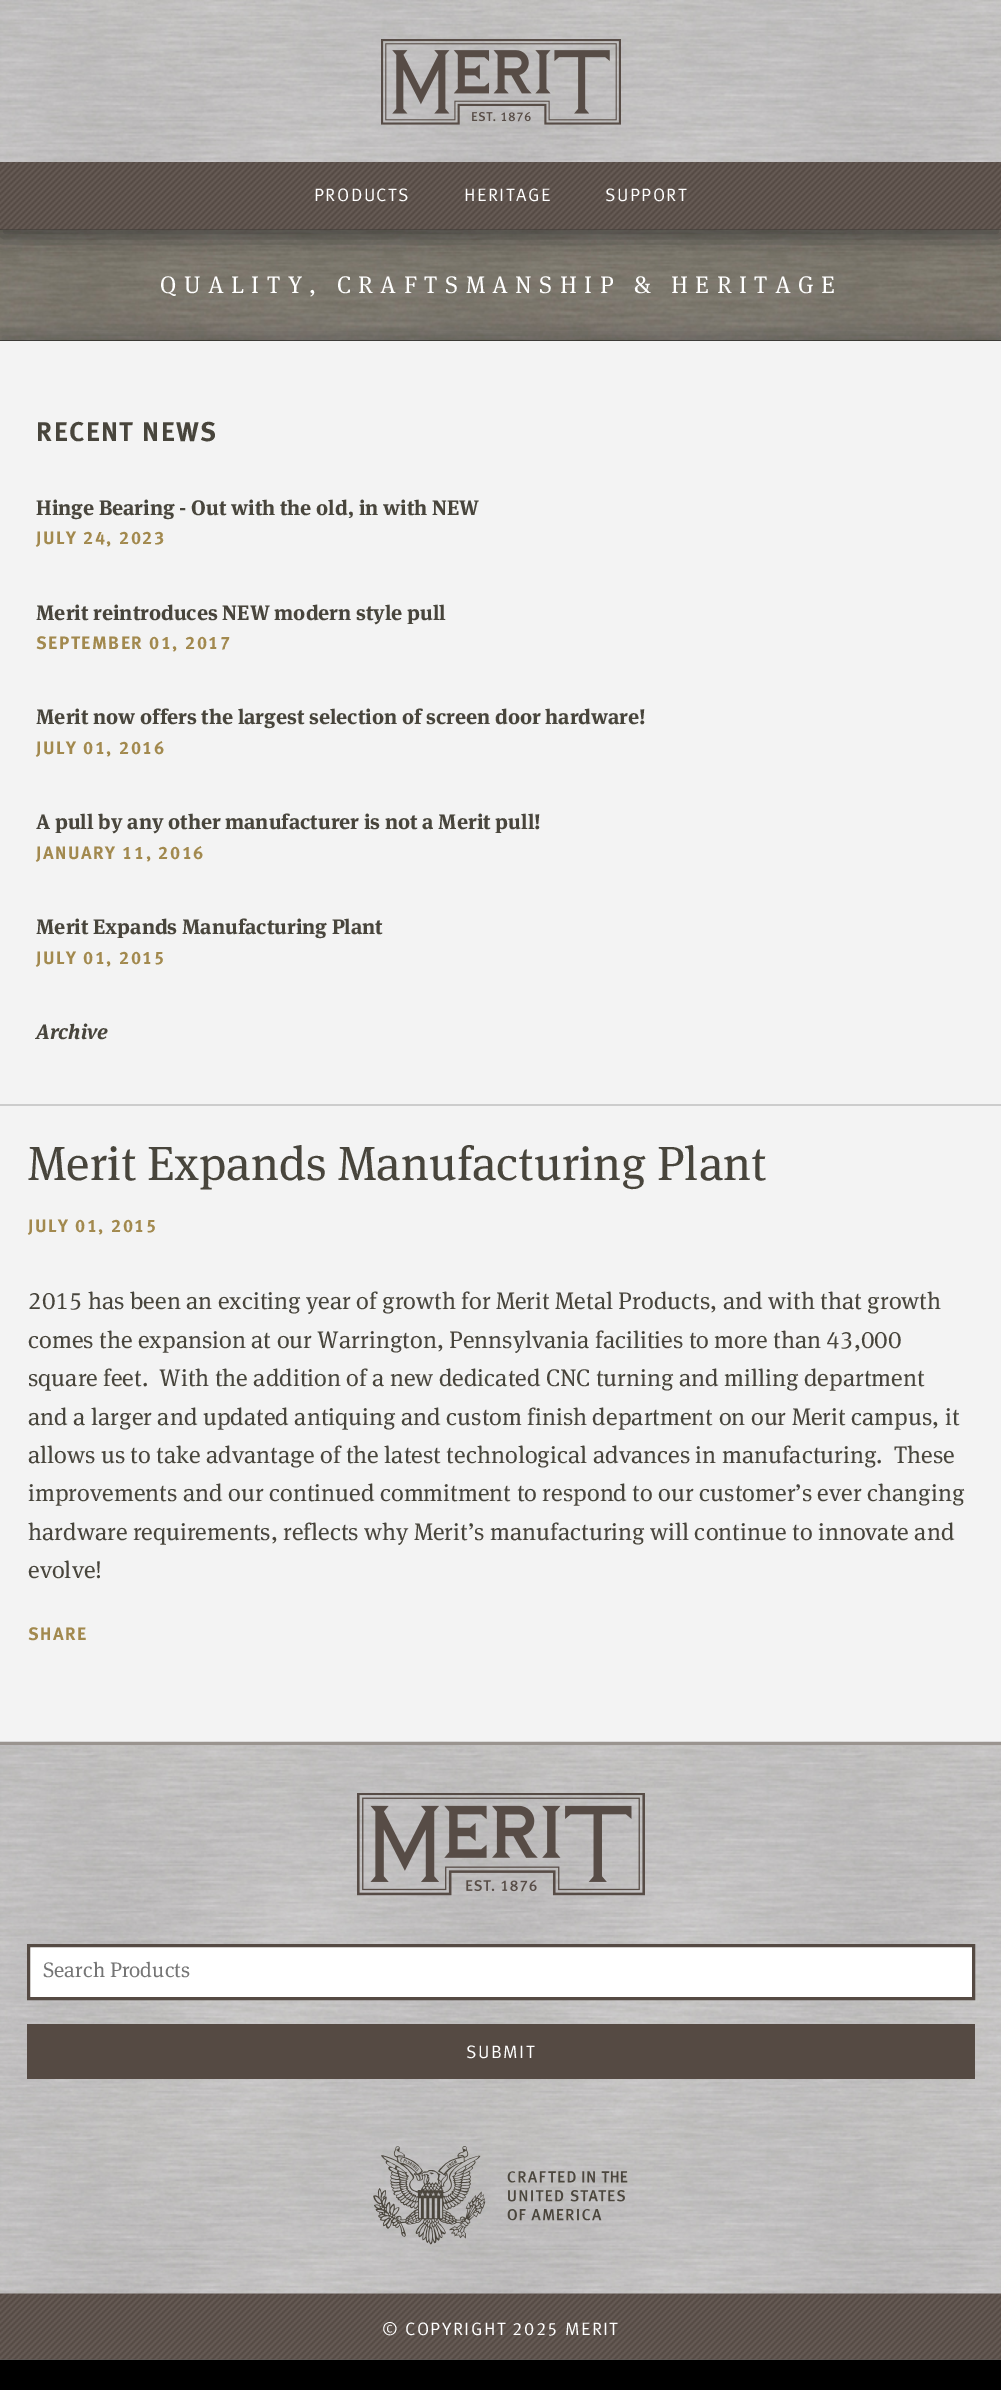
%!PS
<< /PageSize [1001 2390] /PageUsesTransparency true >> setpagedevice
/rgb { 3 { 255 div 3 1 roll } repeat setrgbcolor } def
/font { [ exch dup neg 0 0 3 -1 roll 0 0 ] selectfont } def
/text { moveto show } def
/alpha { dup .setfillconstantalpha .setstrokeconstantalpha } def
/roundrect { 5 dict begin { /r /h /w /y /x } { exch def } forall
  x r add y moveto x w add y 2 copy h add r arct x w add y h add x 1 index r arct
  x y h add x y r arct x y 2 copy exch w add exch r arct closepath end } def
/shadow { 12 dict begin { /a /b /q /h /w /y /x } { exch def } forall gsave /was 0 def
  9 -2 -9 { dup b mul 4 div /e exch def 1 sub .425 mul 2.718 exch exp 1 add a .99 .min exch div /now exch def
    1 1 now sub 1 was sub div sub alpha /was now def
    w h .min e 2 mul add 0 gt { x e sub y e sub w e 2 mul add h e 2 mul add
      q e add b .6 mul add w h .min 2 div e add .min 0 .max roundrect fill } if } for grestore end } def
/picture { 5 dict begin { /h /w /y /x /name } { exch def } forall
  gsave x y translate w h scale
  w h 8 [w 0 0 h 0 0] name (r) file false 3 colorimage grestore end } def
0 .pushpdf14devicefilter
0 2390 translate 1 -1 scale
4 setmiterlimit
0 0 0 rgb
0 0 1001 2390 rectfill
(img_04.rgb) 0 229 1001 112 picture
50 50 50 rgb
0 8 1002 229 0 11 0.35 shadow
0 8 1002 229 0 11 0.5 shadow
(img_01.rgb) 0 162 1001 68 picture
(img_02.rgb) 0 0 1001 162 picture
(img_03.rgb) 381 39 240 86 picture
0 333 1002 1401 0 7.5 0.25 shadow
243 243 243 rgb
0 341 1001 1401 rectfill
204 204 204 rgb
0 1104 1001 2 rectfill
(img_05.rgb) 0 1741 1001 619 picture
154 148 143 rgb
0 1742 1001 3 rectfill
(img_06.rgb) 357 1793 288 103 picture
255 255 255 rgb
28.5 1945.5 moveto 945 0 rlineto 0 53 rlineto -945 0 rlineto closepath gsave fill grestore
85 74 67 rgb
3 setlinewidth
stroke
27 2024 948 55 rectfill
(img_07.rgb) 373 2146 255 99 picture
(img_08.rgb) 0 2293 1001 67 picture
/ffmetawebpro-Regular 18 font
255 255 255 rgb
314 201 moveto 1.5 0 (PRODUCTS) ashow
464 201 moveto 1.5 0 (HERITAGE) ashow
605 201 moveto 1.5 0 (SUPPORT) ashow
/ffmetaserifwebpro-Medium 24 font
160 293 moveto 7.5 0 (QUALITY, CRAFTSMANSHIP & HERITAGE) ashow
/ffmetawebpro-Bold 27 font
72 69 60 rgb
36 441 moveto 1.5 0 (RECENT NEWS) ashow
/ffmetaserifwebpro-Bold 21 font
(Hinge Bearing - Out with the old, in with NEW) 36 515 text
/ffmetawebpro-Bold 18 font
162 137 78 rgb
36 544 moveto 1.5 0 (JULY 24, 2023) ashow
/ffmetaserifwebpro-Bold 21 font
72 69 60 rgb
(Merit reintroduces NEW modern style pull) 36 620 text
/ffmetawebpro-Bold 18 font
162 137 78 rgb
36 649 moveto 1.5 0 (SEPTEMBER 01, 2017) ashow
/ffmetaserifwebpro-Bold 21 font
72 69 60 rgb
(Merit now offers the largest selection of screen door hardware!) 36 724 text
/ffmetawebpro-Bold 18 font
162 137 78 rgb
36 754 moveto 1.5 0 (JULY 01, 2016) ashow
/ffmetaserifwebpro-Bold 21 font
72 69 60 rgb
(A pull by any other manufacturer is not a Merit pull!) 36 829 text
/ffmetawebpro-Bold 18 font
162 137 78 rgb
36 859 moveto 1.5 0 (JANUARY 11, 2016) ashow
/ffmetaserifwebpro-Bold 21 font
72 69 60 rgb
(Merit Expands Manufacturing Plant) 36 934 text
/ffmetawebpro-Bold 18 font
162 137 78 rgb
36 964 moveto 1.5 0 (JULY 01, 2015) ashow
/ffmetaserifwebpro-BoldItalic 21 font
72 69 60 rgb
(Archive) 36 1039 text
/ffmetaserifwebpro-Medium 48 font
(Merit Expands Manufacturing Plant) 28 1180 text
/ffmetawebpro-Bold 18 font
162 137 78 rgb
28 1232 moveto 1.5 0 (JULY 01, 2015) ashow
/ffmetaserifwebpro-Medium 24 font
72 69 60 rgb
(2015 has been an exciting year of growth for Merit Metal Products, and with that growth) 28 1309 text
(comes the expansion at our Warrington, Pennsylvania facilities to more than 43,000) 28 1348 text
(square feet.  With the addition of a new dedicated CNC turning and milling department) 28 1386 text
(and a larger and updated antiquing and custom finish department on our Merit campus, it) 28 1425 text
(allows us to take advantage of the latest technological advances in manufacturing.  These) 28 1463 text
(improvements and our continued commitment to respond to our customer’s ever changing) 28 1501 text
(hardware requirements, reflects why Merit’s manufacturing will continue to innovate and) 28 1540 text
(evolve!) 28 1578 text
/ffmetawebpro-Bold 18 font
162 137 78 rgb
28 1640 moveto 1.5 0 (SHARE) ashow
/ffmetaserifwebpro-Medium 21 font
117 117 117 rgb
(Search Products) 43 1977 text
/ffmetawebpro-Regular 18 font
255 255 255 rgb
466 2058 moveto 1.5 0 (SUBMIT) ashow
382 2335 moveto 1.5 0 (© COPYRIGHT 2025 MERIT) ashow
.poppdf14devicefilter showpage
